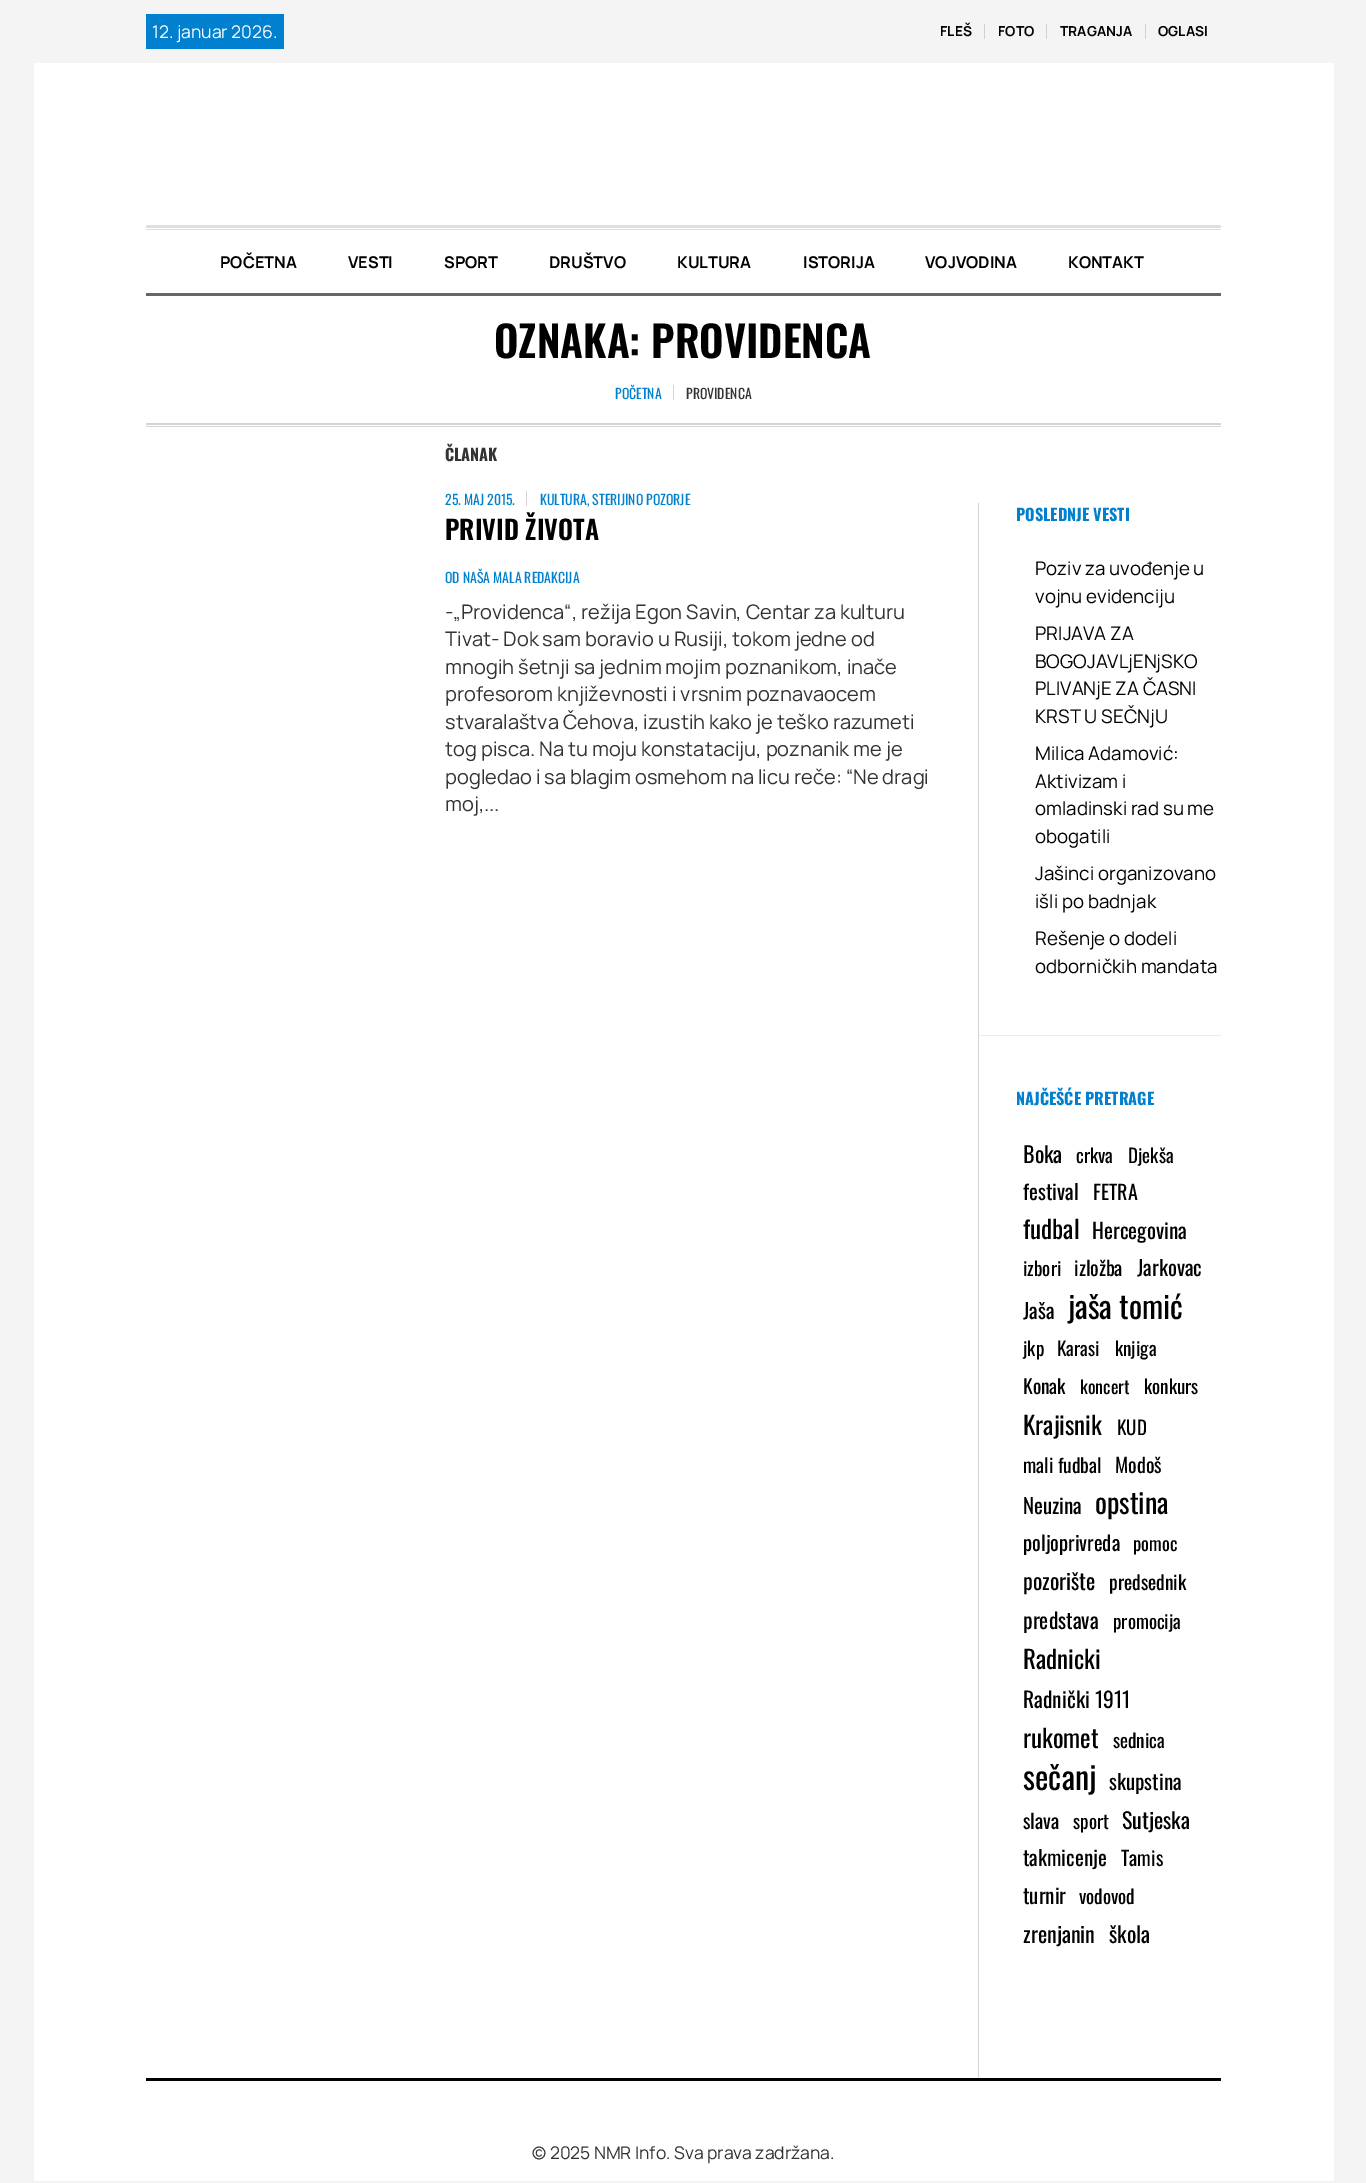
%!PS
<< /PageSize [1366 2183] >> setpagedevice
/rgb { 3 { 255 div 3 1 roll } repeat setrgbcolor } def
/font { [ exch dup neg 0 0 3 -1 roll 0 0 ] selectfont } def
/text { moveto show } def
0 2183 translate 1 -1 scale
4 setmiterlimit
244 244 244 rgb
0 0 1366 2183 rectfill
0 128 206 rgb
146 14 138 35 rectfill
209 209 209 rgb
984 24 1 15 rectfill
1046 24 1 15 rectfill
1145 24 1 15 rectfill
255 255 255 rgb
34 63 1300 2118 rectfill
223 223 223 rgb
146 229 1075 1 rectfill
146 225 1075 3 rectfill
102 102 102 rgb
146 293 1075 3 rectfill
212 212 212 rgb
146 423 1075 2 rectfill
146 426 1075 1 rectfill
673 385 1 15 rectfill
526 491 1 15 rectfill
978 503 1 1575 rectfill
234 234 234 rgb
979 1035 242 1 rectfill
0 0 0 rgb
146 2078 1075 3 rectfill
/Manrope-Regular 17.5 font
255 255 255 rgb
(12. januar 2026.) 152 38 text
/Manrope-Bold 13.75 font
0 0 0 rgb
(FLEŠ) 940 36 text
(FOTO) 998 36 text
(TRAGANJA) 1060 36 text
(OGLASI) 1158 36 text
/Manrope-Bold 16.25 font
(POČETNA) 220 268 text
(VESTI) 348 268 text
(SPORT) 444 268 text
(DRUŠTVO) 549 268 text
(KULTURA) 677 268 text
(ISTORIJA) 803 268 text
(VOJVODINA) 925 268 text
(KONTAKT) 1068 268 text
/Oswald-SemiBold 42.5 font
(OZNAKA: PROVIDENCA) 494 358 text
/Oswald-Regular 13.75 font
0 128 206 rgb
(POČETNA) 615 399 text
51 51 51 rgb
(PROVIDENCA) 686 399 text
/Oswald-Bold 16.25 font
(ČLANAK) 445 461 text
/Oswald-Regular 13.75 font
0 128 206 rgb
(25. MAJ 2015.) 445 505 text
(KULTURA, STERIJINO POZORJE) 540 505 text
/Oswald-SemiBold 26.25 font
0 0 0 rgb
(PRIVID ŽIVOTA) 445 540 text
/Oswald-Regular 13.75 font
0 128 206 rgb
(OD NAŠA MALA REDAKCIJA) 445 583 text
/Manrope-Regular 20 font
51 51 51 rgb
(-„Providenca“, režija Egon Savin, Centar za kulturu) 445 619 text
(Tivat- Dok sam boravio u Rusiji, tokom jedne od) 445 646 text
(mnogih šetnji sa jednim mojim poznanikom, inače) 445 674 text
(profesorom književnosti i vrsnim poznavaocem) 445 701 text
(stvaralaštva Čehova, izustih kako je teško razumeti) 445 729 text
(tog pisca. Na tu moju konstataciju, poznanik me je) 445 756 text
(pogledao i sa blagim osmehom na licu reče: “Ne dragi) 445 784 text
(moj,...) 445 811 text
/Oswald-Bold 16.25 font
0 128 206 rgb
(POSLEDNJE VESTI) 1016 521 text
/Manrope-Regular 18.75 font
0 0 0 rgb
(Poziv za uvođenje u) 1035 575 text
(vojnu evidenciju) 1035 603 text
(PRIJAVA ZA) 1035 640 text
(BOGOJAVLjENjSKO) 1035 668 text
(PLIVANjE ZA ČASNI) 1035 695 text
(KRST U SEČNjU) 1035 723 text
(Milica Adamović:) 1035 760 text
(Aktivizam i) 1035 788 text
(omladinski rad su me) 1035 815 text
(obogatili) 1035 843 text
(Jašinci organizovano) 1035 880 text
(išli po badnjak) 1035 908 text
(Rešenje o dodeli) 1035 945 text
(odborničkih mandata) 1035 973 text
/Oswald-Bold 16.25 font
0 128 206 rgb
(NAJČEŠĆE PRETRAGE) 1016 1105 text
/Oswald-Regular 22 font
0 0 0 rgb
(Boka) 1023 1163 text
/Oswald-Regular 19 font
(crkva) 1076 1163 text
(Djekša) 1128 1163 text
/Oswald-Regular 21 font
(festival) 1023 1200 text
/Oswald-Regular 20 font
(FETRA) 1093 1200 text
/Oswald-Regular 25 font
(fudbal) 1023 1239 text
/Oswald-Regular 21.25 font
(Hercegovina) 1092 1239 text
/Oswald-Regular 19 font
(izbori) 1023 1276 text
/Oswald-Regular 20 font
(izložba) 1074 1276 text
/Oswald-Regular 21 font
(Jarkovac) 1137 1276 text
(Jaša) 1023 1319 text
/Oswald-Regular 31 font
(jaša tomić) 1068 1319 text
/Oswald-Regular 19 font
(jkp) 1023 1356 text
(Karasi) 1057 1356 text
(knjiga) 1115 1356 text
/Oswald-Regular 19.5 font
(Konak) 1023 1394 text
/Oswald-Regular 18 font
(koncert) 1080 1394 text
/Oswald-Regular 19 font
(konkurs) 1144 1394 text
/Oswald-Regular 25 font
(Krajisnik) 1023 1435 text
/Oswald-Regular 19 font
(KUD) 1117 1435 text
/Oswald-Regular 19.5 font
(mali fudbal) 1023 1473 text
/Oswald-Regular 20 font
(Modoš) 1115 1473 text
/Oswald-Regular 21 font
(Neuzina) 1023 1514 text
/Oswald-Regular 28 font
(opstina) 1095 1514 text
/Oswald-Regular 20.5 font
(poljoprivreda) 1023 1551 text
/Oswald-Regular 18.5 font
(pomoc) 1133 1551 text
/Oswald-Regular 22 font
(pozorište) 1023 1590 text
/Oswald-Regular 19.5 font
(predsednik) 1109 1590 text
/Oswald-Regular 21.5 font
(predstava) 1023 1629 text
/Oswald-Regular 19 font
(promocija) 1113 1629 text
/Oswald-Regular 25 font
(Radnicki) 1023 1669 text
/Oswald-Regular 21.5 font
(Radnički 1911) 1023 1708 text
/Oswald-Regular 25 font
(rukomet) 1023 1748 text
/Oswald-Regular 19 font
(sednica) 1113 1748 text
/Oswald-Regular 32 font
(sečanj) 1023 1790 text
/Oswald-Regular 21 font
(skupstina) 1109 1790 text
/Oswald-Regular 20 font
(slava) 1023 1829 text
/Oswald-Regular 19 font
(sport) 1073 1829 text
/Oswald-Regular 22 font
(Sutjeska) 1122 1829 text
/Oswald-Regular 21 font
(takmicenje) 1023 1866 text
/Oswald-Regular 20 font
(Tamis) 1121 1866 text
/Oswald-Regular 21 font
(turnir) 1023 1904 text
/Oswald-Regular 19 font
(vodovod) 1079 1904 text
/Oswald-Regular 22 font
(zrenjanin) 1023 1943 text
(škola) 1109 1943 text
/Manrope-Regular 17.5 font
51 51 51 rgb
(© 2025 NMR Info. Sva prava zadržana.) 532 2159 text
showpage
